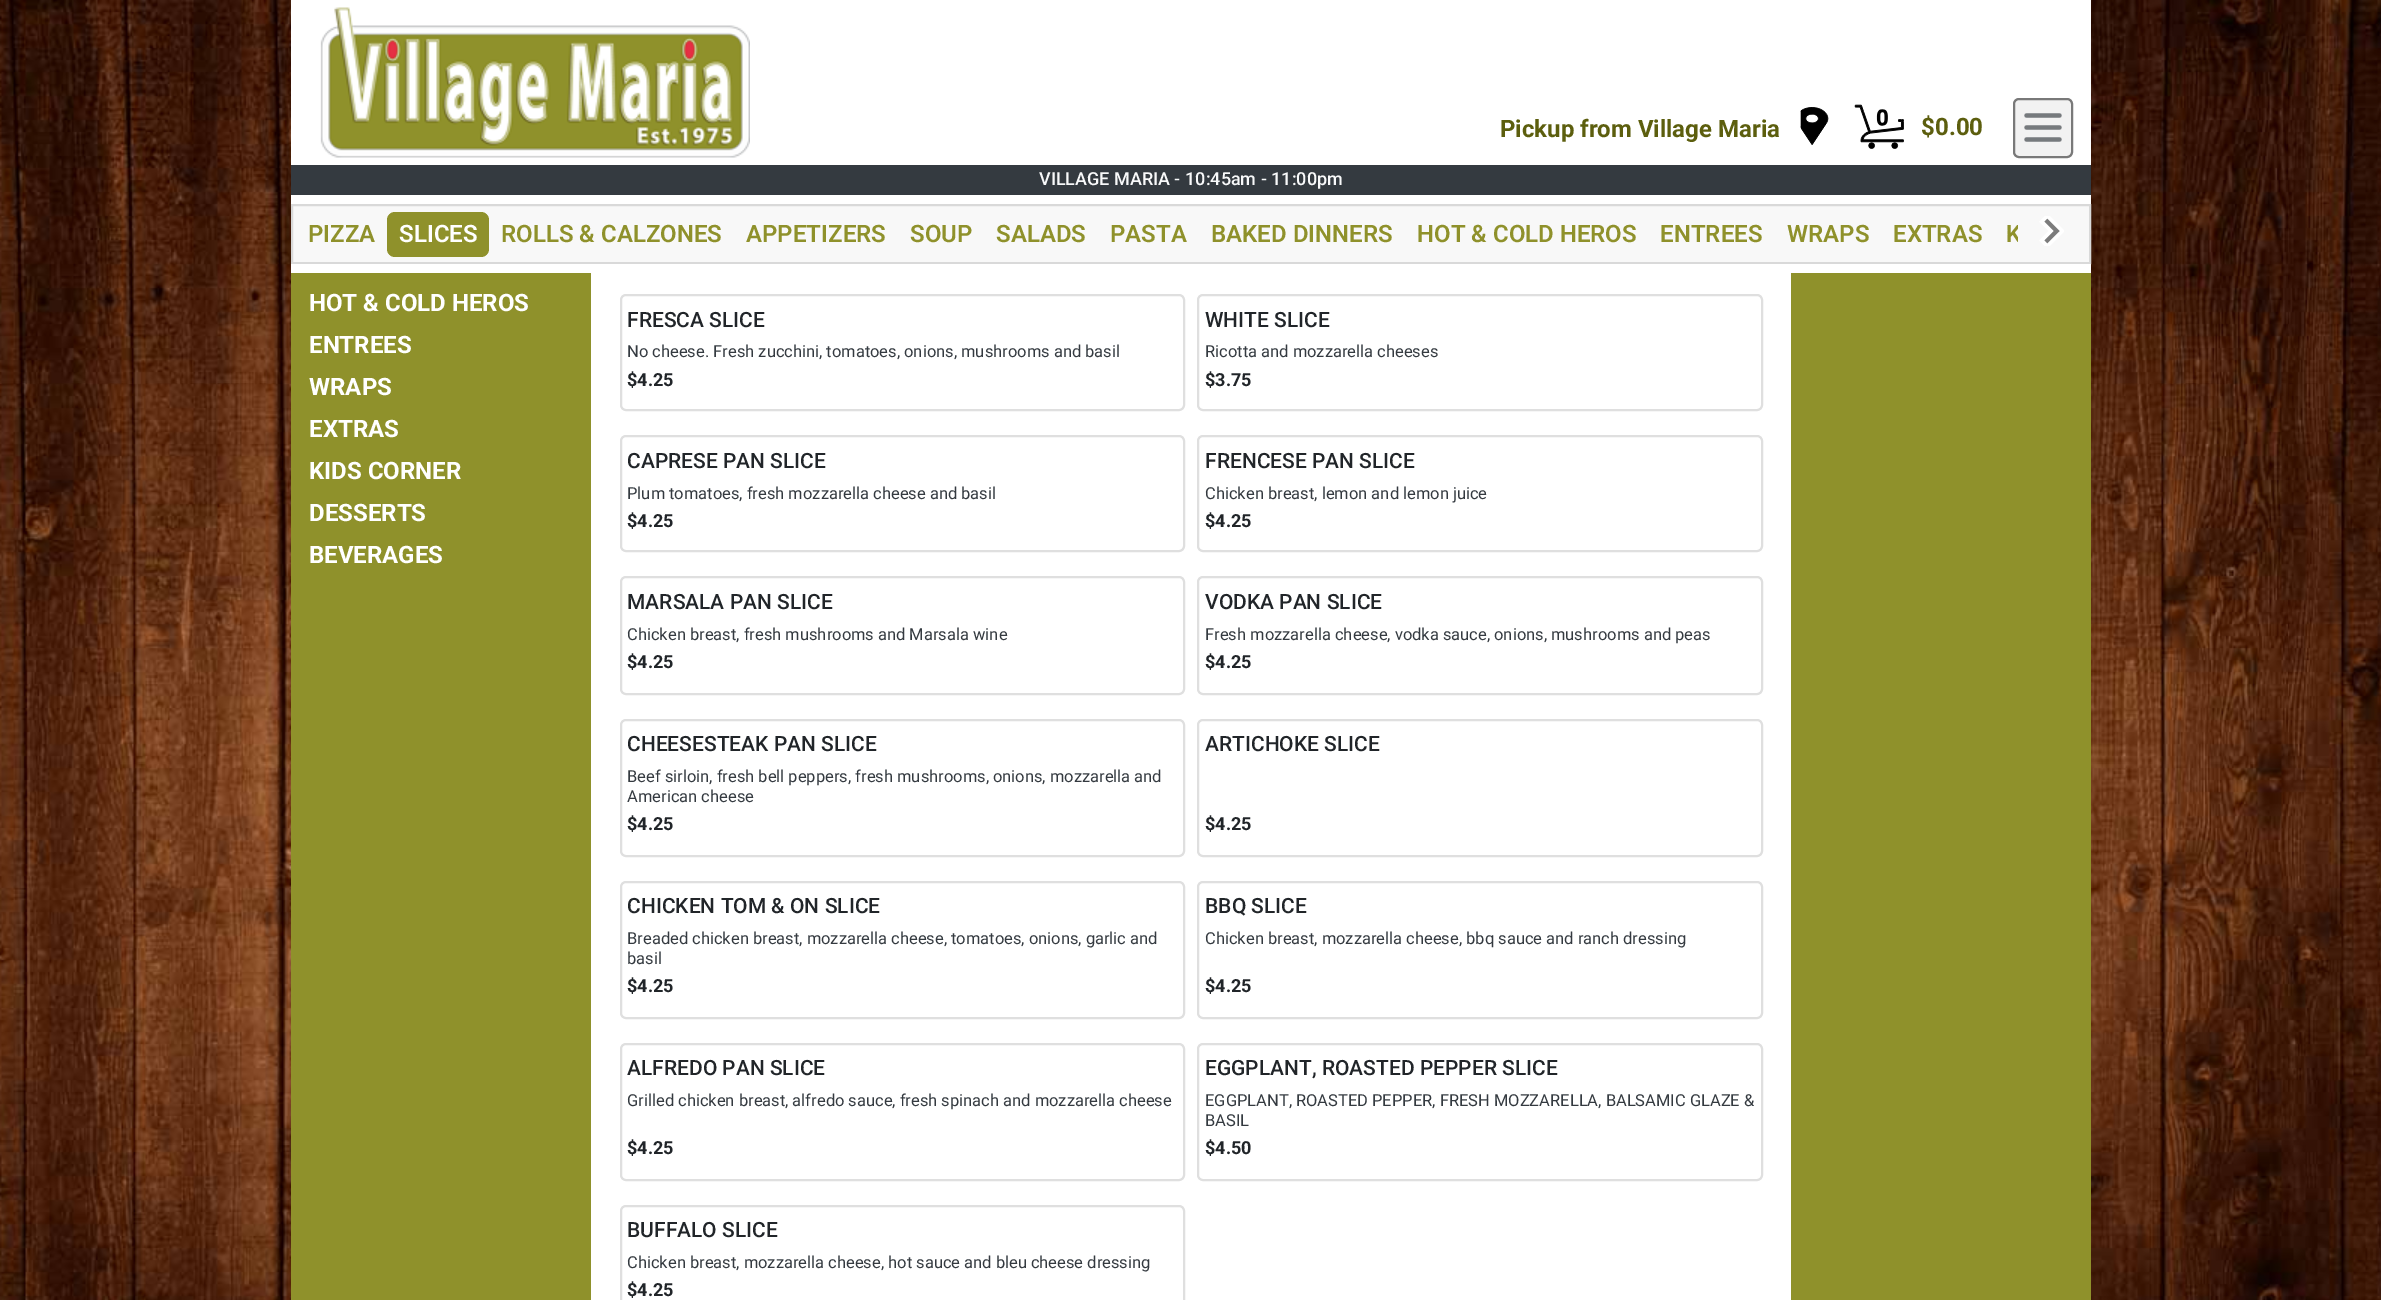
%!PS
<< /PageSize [2381 1300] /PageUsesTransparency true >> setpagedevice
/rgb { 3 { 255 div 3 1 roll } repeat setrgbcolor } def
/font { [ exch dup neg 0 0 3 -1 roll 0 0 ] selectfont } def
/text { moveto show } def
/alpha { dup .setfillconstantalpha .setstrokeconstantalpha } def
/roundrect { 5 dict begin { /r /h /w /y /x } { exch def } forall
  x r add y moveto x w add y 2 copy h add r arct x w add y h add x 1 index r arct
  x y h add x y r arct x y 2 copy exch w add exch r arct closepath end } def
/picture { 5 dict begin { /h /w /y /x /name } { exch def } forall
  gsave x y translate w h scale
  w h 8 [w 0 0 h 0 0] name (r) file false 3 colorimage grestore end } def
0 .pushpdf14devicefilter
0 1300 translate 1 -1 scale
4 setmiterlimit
255 255 255 rgb
0 0 2381 1300 rectfill
(img_01.rgb) 0 0 2381 1300 picture
291 0 1800 165 rectfill
(img_02.rgb) 320 7 430 151 picture
(img_03.rgb) 1800 107 29 38 picture
(img_04.rgb) 1854 104 50 45 picture
242 242 242 rgb
2013 98 60 60 6 roundrect fill
0.5 alpha
0 0 0 rgb
2 setlinewidth
2014 99 58 58 5 roundrect stroke
1 alpha
(img_05.rgb) 2024 113 38 29 picture
52 58 64 rgb
291 165 1800 30 rectfill
255 255 255 rgb
291 195 1800 9 rectfill
248 248 248 rgb
292 205 moveto 1798 0 rlineto 0 58 rlineto -1798 0 rlineto closepath gsave fill grestore
217 217 217 rgb
stroke
143 145 43 rgb
387 212 102 45 8 roundrect fill
(img_06.rgb) 2039 216 25 30 picture
255 255 255 rgb
291 264 1800 9 rectfill
591 273 1200 1027 rectfill
143 145 43 rgb
291 273 300 1027 rectfill
223 223 223 rgb
621 295 563 115 5 roundrect stroke
1198 295 564 115 5 roundrect stroke
621 436 563 115 5 roundrect stroke
1198 436 564 115 5 roundrect stroke
621 577 563 117 5 roundrect stroke
1198 577 564 117 5 roundrect stroke
621 720 563 136 5 roundrect stroke
1198 720 564 136 5 roundrect stroke
621 882 563 136 5 roundrect stroke
1198 882 564 136 5 roundrect stroke
621 1044 563 136 5 roundrect stroke
1198 1044 564 136 5 roundrect stroke
621 1206 563 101 5 roundrect stroke
143 145 43 rgb
1791 273 300 1027 rectfill
/Roboto-Bold 24 font
92 94 14 rgb
(Pickup from Village Maria) 1500 137 text
($0.00) 1921 135 text
/Roboto-Medium 18 font
248 249 250 rgb
(VILLAGE MARIA - 10:45am - 11:00pm) 1039 185 text
/Roboto-SemiBold 24 font
143 145 43 rgb
(PIZZA) 308 242 text
255 255 255 rgb
(SLICES) 399 242 text
143 145 43 rgb
(ROLLS & CALZONES) 501 242 text
(APPETIZERS) 746 242 text
(SOUP) 910 242 text
(SALADS) 996 242 text
(PASTA) 1110 242 text
(BAKED DINNERS) 1211 242 text
(HOT & COLD HEROS) 1417 242 text
(ENTREES) 1660 242 text
(WRAPS) 1787 242 text
(EXTRAS) 1893 242 text
gsave
296 212 1722 48 rectclip
(K) 2006 242 text
grestore
/Roboto-Bold 24 font
255 255 255 rgb
(HOT & COLD HEROS) 309 311 text
(ENTREES) 309 353 text
(WRAPS) 309 395 text
(EXTRAS) 309 437 text
(KIDS CORNER) 309 479 text
(DESSERTS) 309 521 text
(BEVERAGES) 309 563 text
/Roboto-Medium 21 font
33 37 41 rgb
(FRESCA SLICE) 627 327 text
/Roboto-Regular 16.5 font
52 58 64 rgb
(No cheese. Fresh zucchini, tomatoes, onions, mushrooms and basil) 627 357 text
/Roboto-Bold 18 font
33 37 41 rgb
($4.25) 627 386 text
/Roboto-Medium 21 font
(WHITE SLICE) 1205 327 text
/Roboto-Regular 16.5 font
52 58 64 rgb
(Ricotta and mozzarella cheeses) 1205 357 text
/Roboto-Bold 18 font
33 37 41 rgb
($3.75) 1205 386 text
/Roboto-Medium 21 font
(CAPRESE PAN SLICE) 627 468 text
/Roboto-Regular 16.5 font
52 58 64 rgb
(Plum tomatoes, fresh mozzarella cheese and basil) 627 499 text
/Roboto-Bold 18 font
33 37 41 rgb
($4.25) 627 527 text
/Roboto-Medium 21 font
(FRENCESE PAN SLICE) 1205 468 text
/Roboto-Regular 16.5 font
52 58 64 rgb
(Chicken breast, lemon and lemon juice) 1205 499 text
/Roboto-Bold 18 font
33 37 41 rgb
($4.25) 1205 527 text
/Roboto-Medium 21 font
(MARSALA PAN SLICE) 627 609 text
/Roboto-Regular 16.5 font
52 58 64 rgb
(Chicken breast, fresh mushrooms and Marsala wine) 627 640 text
/Roboto-Bold 18 font
33 37 41 rgb
($4.25) 627 668 text
/Roboto-Medium 21 font
(VODKA PAN SLICE) 1205 609 text
/Roboto-Regular 16.5 font
52 58 64 rgb
(Fresh mozzarella cheese, vodka sauce, onions, mushrooms and peas) 1205 640 text
/Roboto-Bold 18 font
33 37 41 rgb
($4.25) 1205 668 text
/Roboto-Medium 21 font
(CHEESESTEAK PAN SLICE) 627 751 text
/Roboto-Regular 16.5 font
52 58 64 rgb
(Beef sirloin, fresh bell peppers, fresh mushrooms, onions, mozzarella and) 627 782 text
(American cheese) 627 802 text
/Roboto-Bold 18 font
33 37 41 rgb
($4.25) 627 830 text
/Roboto-Medium 21 font
(ARTICHOKE SLICE) 1205 751 text
/Roboto-Bold 18 font
($4.25) 1205 830 text
/Roboto-Medium 21 font
(CHICKEN TOM & ON SLICE) 627 913 text
/Roboto-Regular 16.5 font
52 58 64 rgb
(Breaded chicken breast, mozzarella cheese, tomatoes, onions, garlic and) 627 944 text
(basil) 627 964 text
/Roboto-Bold 18 font
33 37 41 rgb
($4.25) 627 992 text
/Roboto-Medium 21 font
(BBQ SLICE) 1205 913 text
/Roboto-Regular 16.5 font
52 58 64 rgb
(Chicken breast, mozzarella cheese, bbq sauce and ranch dressing) 1205 944 text
/Roboto-Bold 18 font
33 37 41 rgb
($4.25) 1205 992 text
/Roboto-Medium 21 font
(ALFREDO PAN SLICE) 627 1075 text
/Roboto-Regular 16.5 font
52 58 64 rgb
(Grilled chicken breast, alfredo sauce, fresh spinach and mozzarella cheese) 627 1106 text
/Roboto-Bold 18 font
33 37 41 rgb
($4.25) 627 1154 text
/Roboto-Medium 21 font
(EGGPLANT, ROASTED PEPPER SLICE) 1205 1075 text
/Roboto-Regular 16.5 font
52 58 64 rgb
(EGGPLANT, ROASTED PEPPER, FRESH MOZZARELLA, BALSAMIC GLAZE &) 1205 1106 text
(BASIL) 1205 1126 text
/Roboto-Bold 18 font
33 37 41 rgb
($4.50) 1205 1154 text
/Roboto-Medium 21 font
(BUFFALO SLICE) 627 1237 text
/Roboto-Regular 16.5 font
52 58 64 rgb
(Chicken breast, mozzarella cheese, hot sauce and bleu cheese dressing) 627 1268 text
/Roboto-Bold 18 font
33 37 41 rgb
($4.25) 627 1296 text
.poppdf14devicefilter showpage
